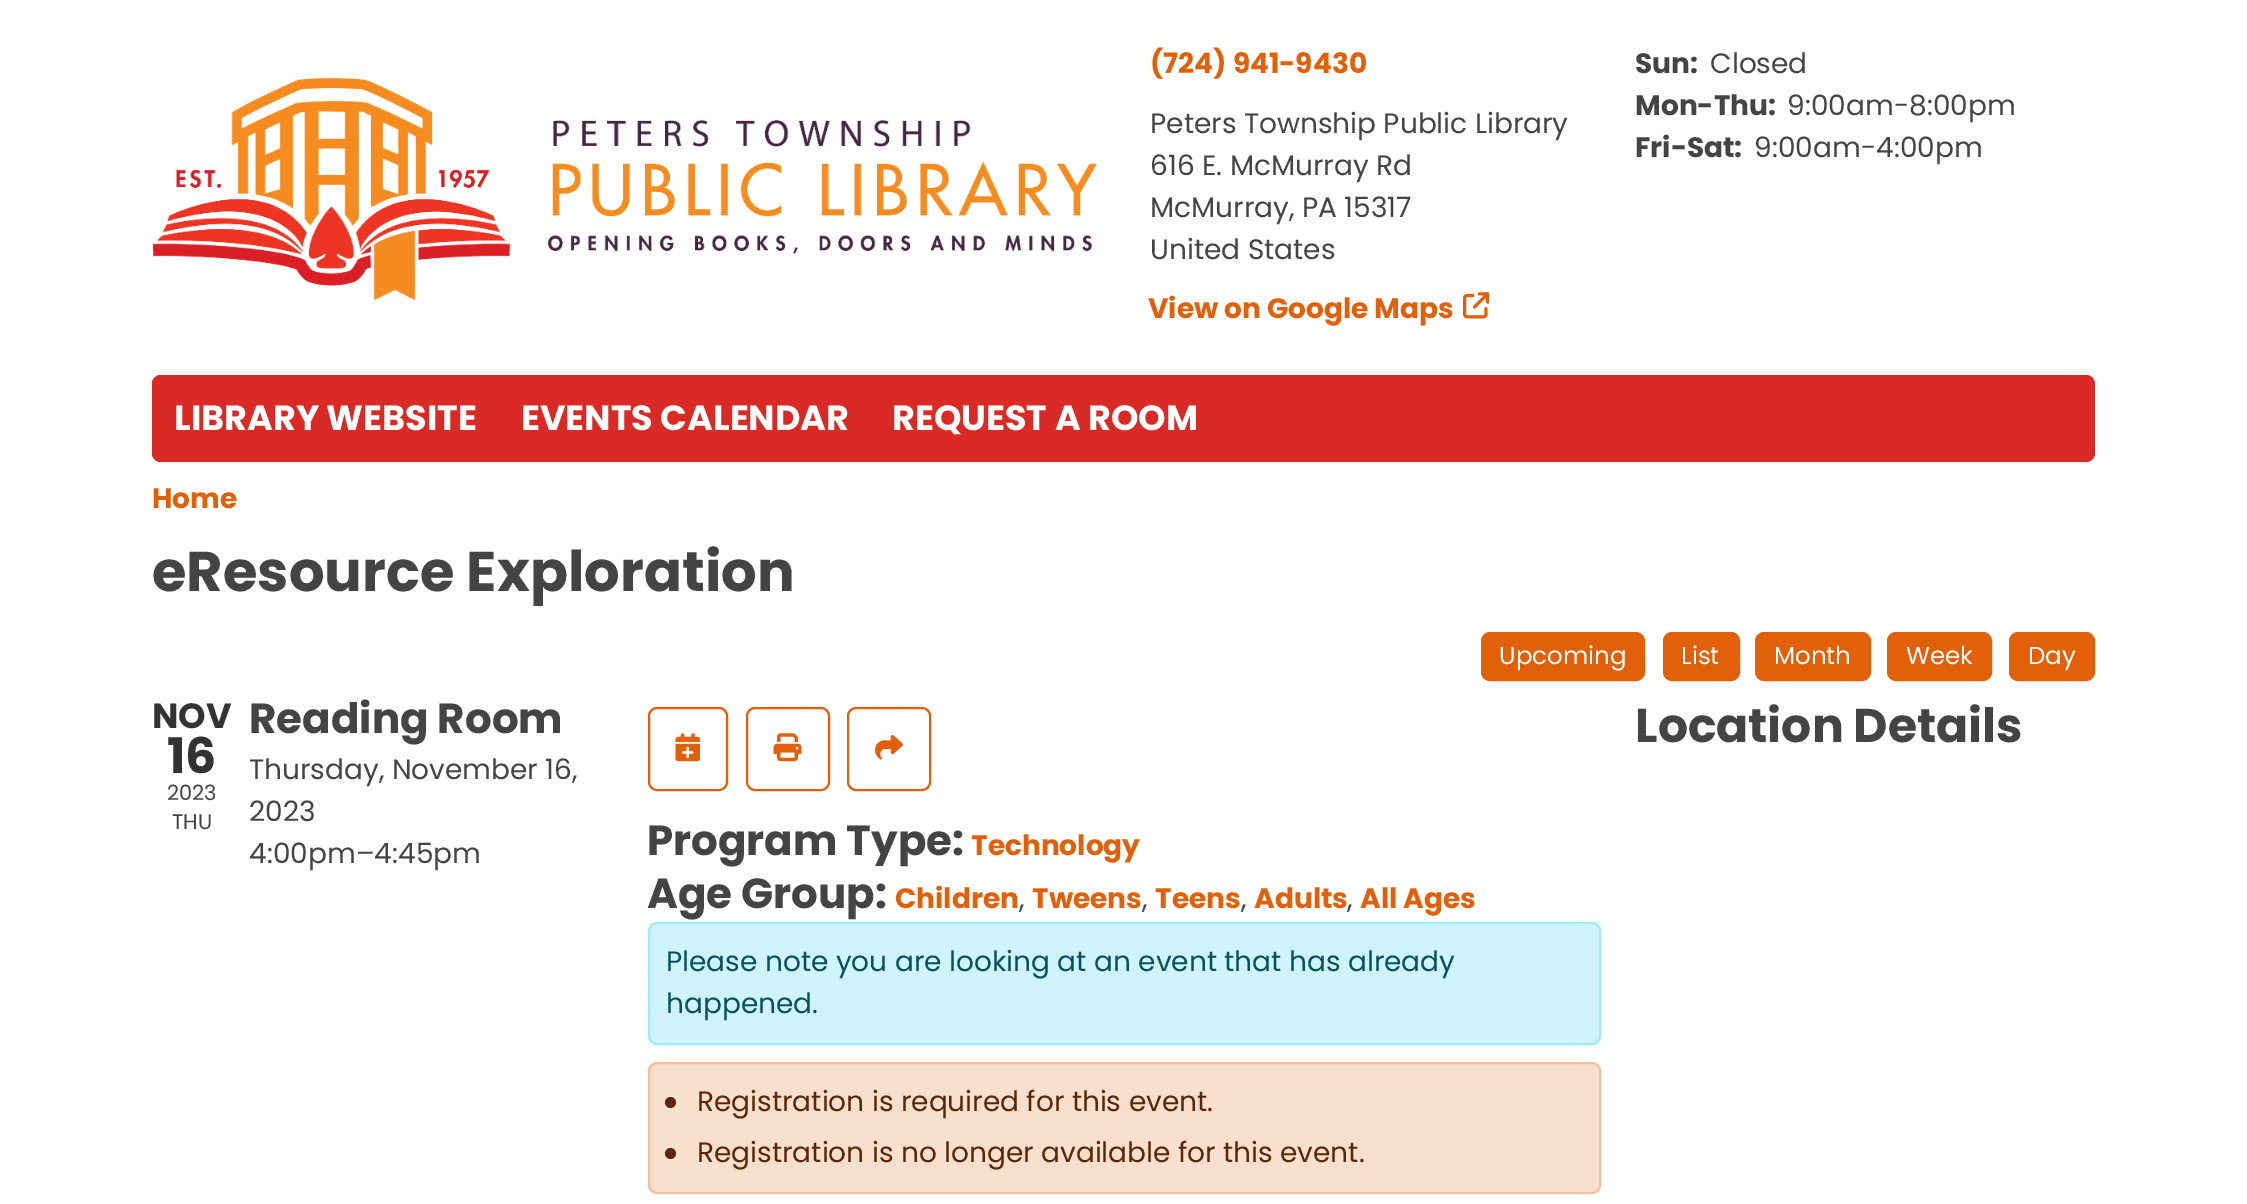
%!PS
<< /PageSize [2247 1204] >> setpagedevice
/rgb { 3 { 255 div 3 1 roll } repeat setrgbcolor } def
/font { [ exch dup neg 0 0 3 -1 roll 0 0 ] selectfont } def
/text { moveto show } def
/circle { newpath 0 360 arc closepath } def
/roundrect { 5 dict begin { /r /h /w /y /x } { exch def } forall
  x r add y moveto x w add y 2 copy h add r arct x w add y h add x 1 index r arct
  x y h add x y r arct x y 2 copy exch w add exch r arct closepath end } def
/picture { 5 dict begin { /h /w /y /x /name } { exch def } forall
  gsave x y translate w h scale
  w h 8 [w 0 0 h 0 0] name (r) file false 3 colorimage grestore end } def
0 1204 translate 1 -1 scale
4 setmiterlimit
255 255 255 rgb
0 0 2247 1204 rectfill
(img_01.rgb) 152 77 945 223 picture
(img_02.rgb) 1463 292 26 27 picture
218 42 37 rgb
152 375 1943 87 9 roundrect fill
161 375 moveto 338 0 rlineto 0 87 rlineto -338 0 rlineto -5 0 -9 -4 -9 -9 rcurveto 0 -69 rlineto 0 -5 4 -9 9 -9 rcurveto closepath fill
226 96 9 rgb
1482 633 162 47 8 roundrect gsave fill grestore
2 setlinewidth
stroke
1664 633 75 47 8 roundrect gsave fill grestore
stroke
1756 633 114 47 8 roundrect gsave fill grestore
stroke
1888 633 103 47 8 roundrect gsave fill grestore
stroke
2010 633 84 47 8 roundrect gsave fill grestore
stroke
649 708 78 82 8 roundrect stroke
(img_03.rgb) 675 733 25 29 picture
747 708 82 82 8 roundrect stroke
(img_04.rgb) 773 733 29 29 picture
848 708 82 82 8 roundrect stroke
(img_05.rgb) 875 735 28 25 picture
207 244 252 rgb
649 923 951 121 8 roundrect gsave fill grestore
158 234 249 rgb
stroke
249 223 206 rgb
649 1063 951 130 8 roundrect gsave fill grestore
243 191 157 rgb
stroke
90 38 4 rgb
670.5 1102.5 5.5 circle fill
670.5 1153.5 5.5 circle fill
/Poppins-Bold 28 font
226 96 9 rgb
(\(724\) 941-9430) 1150 73 text
/Poppins-Regular 28 font
68 68 68 rgb
(Peters Township Public Library) 1150 133 text
(616 E. McMurray Rd) 1150 175 text
(McMurray, PA 15317) 1150 217 text
(United States) 1150 259 text
/Poppins-Bold 28 font
226 96 9 rgb
(View on Google Maps) 1148 318 text
68 68 68 rgb
(Sun:) 1635 73 text
/Poppins-Regular 28 font
(Closed) 1710 73 text
/Poppins-Bold 28 font
(Mon-Thu:) 1635 115 text
/Poppins-Regular 28 font
(9:00am-8:00pm) 1787 115 text
/Poppins-Bold 28 font
(Fri-Sat:) 1635 157 text
/Poppins-Regular 28 font
(9:00am-4:00pm) 1754 157 text
/Poppins-Bold 35 font
255 255 255 rgb
(LIBRARY WEBSITE) 174 430 text
(EVENTS CALENDAR) 521 430 text
(REQUEST A ROOM) 892 430 text
/Poppins-Bold 28 font
226 96 9 rgb
(Home) 152 508 text
/Poppins-Bold 56 font
68 68 68 rgb
(eResource Exploration) 152 591 text
/Poppins-Regular 24.5 font
255 255 255 rgb
(Upcoming) 1499 664 text
(List) 1681 664 text
(Month) 1774 664 text
(Week) 1906 664 text
(Day) 2028 664 text
/Poppins-Bold 35 font
51 51 51 rgb
(NOV) 152 728 text
/Poppins-Bold 49 font
(16) 167 773 text
/Poppins-Regular 21 font
68 68 68 rgb
(2023) 167 800 text
(THU) 172 829 text
/Poppins-Bold 42 font
(Reading Room) 249 733 text
/Poppins-Regular 28 font
(Thursday, November 16,) 249 779 text
(2023) 249 821 text
(4:00pm–4:45pm) 249 863 text
/Poppins-Bold 47.25 font
(Location Details) 1635 742 text
/Poppins-Bold 42 font
(Program Type:) 647 855 text
/Poppins-Bold 28 font
226 96 9 rgb
(Technology) 971 855 text
/Poppins-Bold 42 font
68 68 68 rgb
(Age Group:) 647 908 text
/Poppins-Bold 28 font
226 96 9 rgb
(Children) 895 908 text
/Poppins-Regular 28 font
68 68 68 rgb
(,) 1019 908 text
/Poppins-Bold 28 font
226 96 9 rgb
(Tweens) 1032 908 text
/Poppins-Regular 28 font
68 68 68 rgb
(,) 1142 908 text
/Poppins-Bold 28 font
226 96 9 rgb
(Teens) 1155 908 text
/Poppins-Regular 28 font
68 68 68 rgb
(,) 1241 908 text
/Poppins-Bold 28 font
226 96 9 rgb
(Adults) 1254 908 text
/Poppins-Regular 28 font
68 68 68 rgb
(,) 1347 908 text
/Poppins-Bold 28 font
226 96 9 rgb
(All Ages) 1360 908 text
/Poppins-Regular 28 font
5 81 96 rgb
(Please note you are looking at an event that has already) 666 971 text
(happened.) 666 1013 text
90 38 4 rgb
(Registration is required for this event.) 697 1111 text
(Registration is no longer available for this event.) 697 1162 text
showpage
